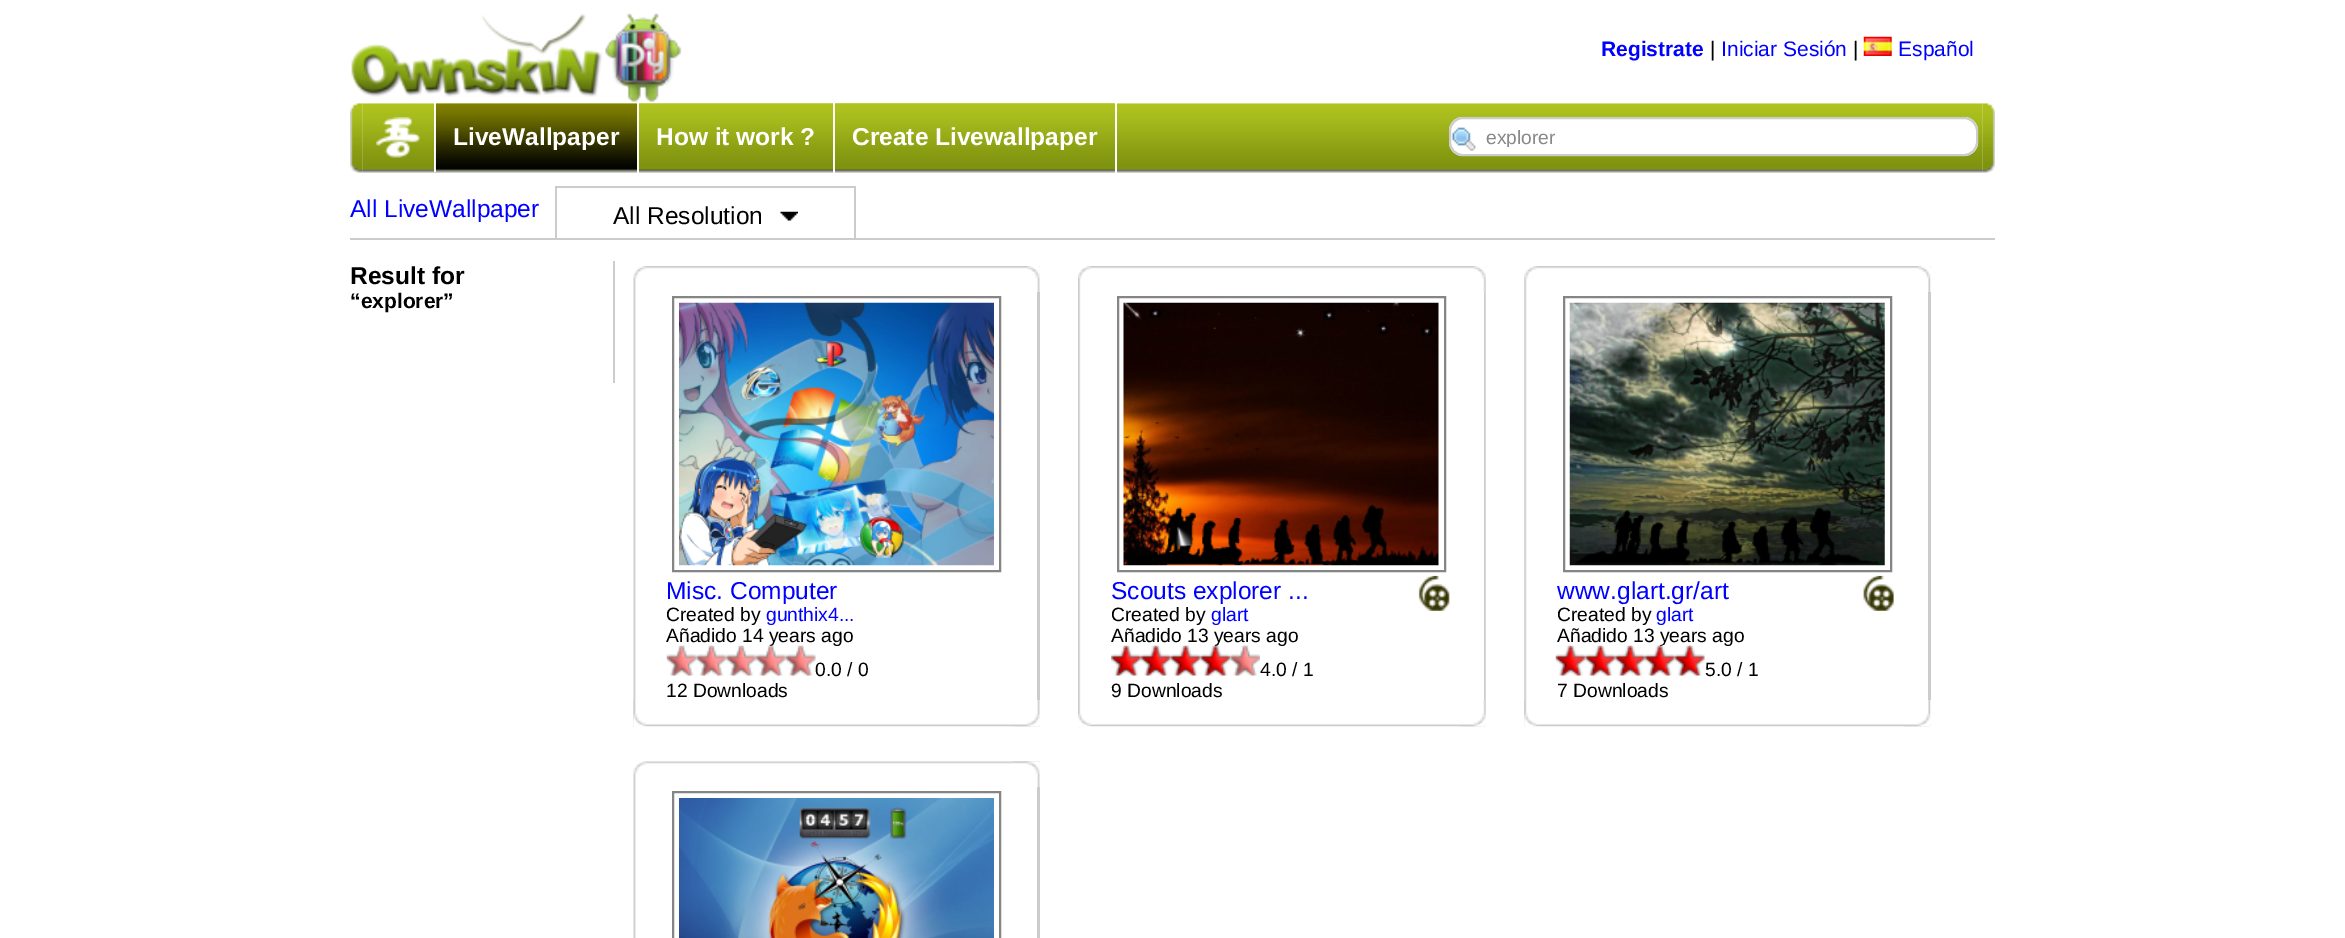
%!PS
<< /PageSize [2345 938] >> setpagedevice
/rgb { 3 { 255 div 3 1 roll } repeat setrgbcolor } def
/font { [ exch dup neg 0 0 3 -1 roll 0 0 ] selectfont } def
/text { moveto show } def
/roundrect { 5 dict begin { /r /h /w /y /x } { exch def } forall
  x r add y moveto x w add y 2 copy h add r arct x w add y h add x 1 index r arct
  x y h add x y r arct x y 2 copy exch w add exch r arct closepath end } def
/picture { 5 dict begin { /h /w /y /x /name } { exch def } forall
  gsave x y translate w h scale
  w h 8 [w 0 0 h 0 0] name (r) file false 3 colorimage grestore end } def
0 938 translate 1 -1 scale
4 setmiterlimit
255 255 255 rgb
0 0 2345 938 rectfill
(img_01.rgb) 351 13 331 89 picture
(img_02.rgb) 1863 36 29 20 picture
(img_03.rgb) 350 103 13 70 picture
(img_04.rgb) 362 103 1621 70 picture
434 103 2 69 rectfill
(img_05.rgb) 376 117 44 41 picture
637 103 2 70 rectfill
(img_06.rgb) 435 103 202 67 picture
833 103 2 70 rectfill
(img_07.rgb) 638 103 195 67 picture
1115 103 2 70 rectfill
(img_08.rgb) 834 103 281 67 picture
1449 117 529 39 14 roundrect fill
(img_09.rgb) 1452 127 24 24 picture
204 204 204 rgb
2 setlinewidth
1450 118 527 37 13 roundrect stroke
(img_10.rgb) 1982 103 13 70 picture
350 238 1645 2 rectfill
555 186 301 2 rectfill
854 186 2 52 rectfill
555 186 2 52 rectfill
(img_11.rgb) 780 211 18 10 picture
613 261 2 122 rectfill
(img_12.rgb) 633 266 407 461 picture
(img_13.rgb) 1027 266 13 27 picture
1037 292 3 408 rectfill
133 133 133 rgb
673 297 327 274 rectstroke
(img_14.rgb) 679 302 315 264 picture
(img_20.rgb) 633 700 407 27 picture
(img_21.rgb) 1013 700 27 27 picture
(img_22.rgb) 1078 266 408 461 picture
(img_23.rgb) 1473 266 13 27 picture
(img_24.rgb) 1484 292 2 408 picture
1118 297 327 274 rectstroke
(img_25.rgb) 1123 302 316 264 picture
(img_31.rgb) 1418 575 32 36 picture
(img_32.rgb) 1078 714 408 13 picture
(img_33.rgb) 1459 700 27 27 picture
(img_34.rgb) 1524 266 407 461 picture
(img_35.rgb) 1918 266 13 27 picture
204 204 204 rgb
1928 292 3 408 rectfill
133 133 133 rgb
1564 297 327 274 rectstroke
(img_36.rgb) 1569 302 316 264 picture
(img_41.rgb) 1863 575 31 36 picture
(img_42.rgb) 1524 700 407 27 picture
(img_43.rgb) 1904 700 27 27 picture
(img_44.rgb) 633 761 407 177 picture
(img_45.rgb) 1013 761 27 27 picture
204 204 204 rgb
1037 787 3 151 rectfill
133 133 133 rgb
673 792 327 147 rectstroke
(img_46.rgb) 679 798 315 140 picture
/LiberationSans-Bold 21 font
0 0 255 rgb
(Registrate) 1601 56 text
/LiberationSans-Regular 21 font
0 0 0 rgb
(|) 1710 56 text
0 0 255 rgb
(Iniciar Sesión) 1721 56 text
0 0 0 rgb
(|) 1853 56 text
0 0 255 rgb
(Español) 1898 56 text
/LiberationSans-Bold 24.5 font
255 255 255 rgb
(LiveWallpaper) 453 145 text
(How it work ?) 656 145 text
(Create Livewallpaper) 852 145 text
gsave
1486 126 490 21 rectclip
/LiberationSans-Regular 19.25 font
136 136 136 rgb
(explorer) 1486 144 text
grestore
/LiberationSans-Regular 24.5 font
0 0 255 rgb
(All LiveWallpaper) 350 217 text
0 0 0 rgb
(All Resolution) 613 224 text
/LiberationSans-Bold 24.5 font
(Result for) 350 284 text
/LiberationSans-Bold 21 font
(“explorer”) 350 308 text
/LiberationSans-Regular 24.5 font
0 0 255 rgb
(Misc. Computer) 666 599 text
/LiberationSans-Regular 19.25 font
0 0 0 rgb
(Created by) 666 621 text
0 0 255 rgb
(gunthix4...) 766 621 text
0 0 0 rgb
(Añadido 14 years ago) 666 642 text
(img_15.rgb) 666 645 31 31 picture
(img_16.rgb) 696 645 31 31 picture
(img_17.rgb) 726 645 30 31 picture
(img_18.rgb) 756 645 30 31 picture
(img_19.rgb) 785 645 31 31 picture
(0.0 / 0) 815 676 text
(12 Downloads) 666 697 text
/LiberationSans-Regular 24.5 font
0 0 255 rgb
(Scouts explorer ...) 1111 599 text
/LiberationSans-Regular 19.25 font
0 0 0 rgb
(Created by) 1111 621 text
0 0 255 rgb
(glart) 1211 621 text
0 0 0 rgb
(Añadido 13 years ago) 1111 642 text
(img_26.rgb) 1111 645 30 31 picture
(img_27.rgb) 1141 645 30 31 picture
(img_28.rgb) 1170 645 31 31 picture
(img_29.rgb) 1200 645 31 31 picture
(img_30.rgb) 1230 645 30 31 picture
(4.0 / 1) 1260 676 text
(9 Downloads) 1111 697 text
/LiberationSans-Regular 24.5 font
0 0 255 rgb
(www.glart.gr/art) 1557 599 text
/LiberationSans-Regular 19.25 font
0 0 0 rgb
(Created by) 1557 621 text
0 0 255 rgb
(glart) 1656 621 text
0 0 0 rgb
(Añadido 13 years ago) 1557 642 text
(img_37.rgb) 1555 645 31 31 picture
(img_38.rgb) 1585 645 31 31 picture
(img_39.rgb) 1615 645 30 31 picture
(img_40.rgb) 1645 645 30 31 picture
(img_28.rgb) 1674 645 31 31 picture
(5.0 / 1) 1705 676 text
(7 Downloads) 1557 697 text
showpage
